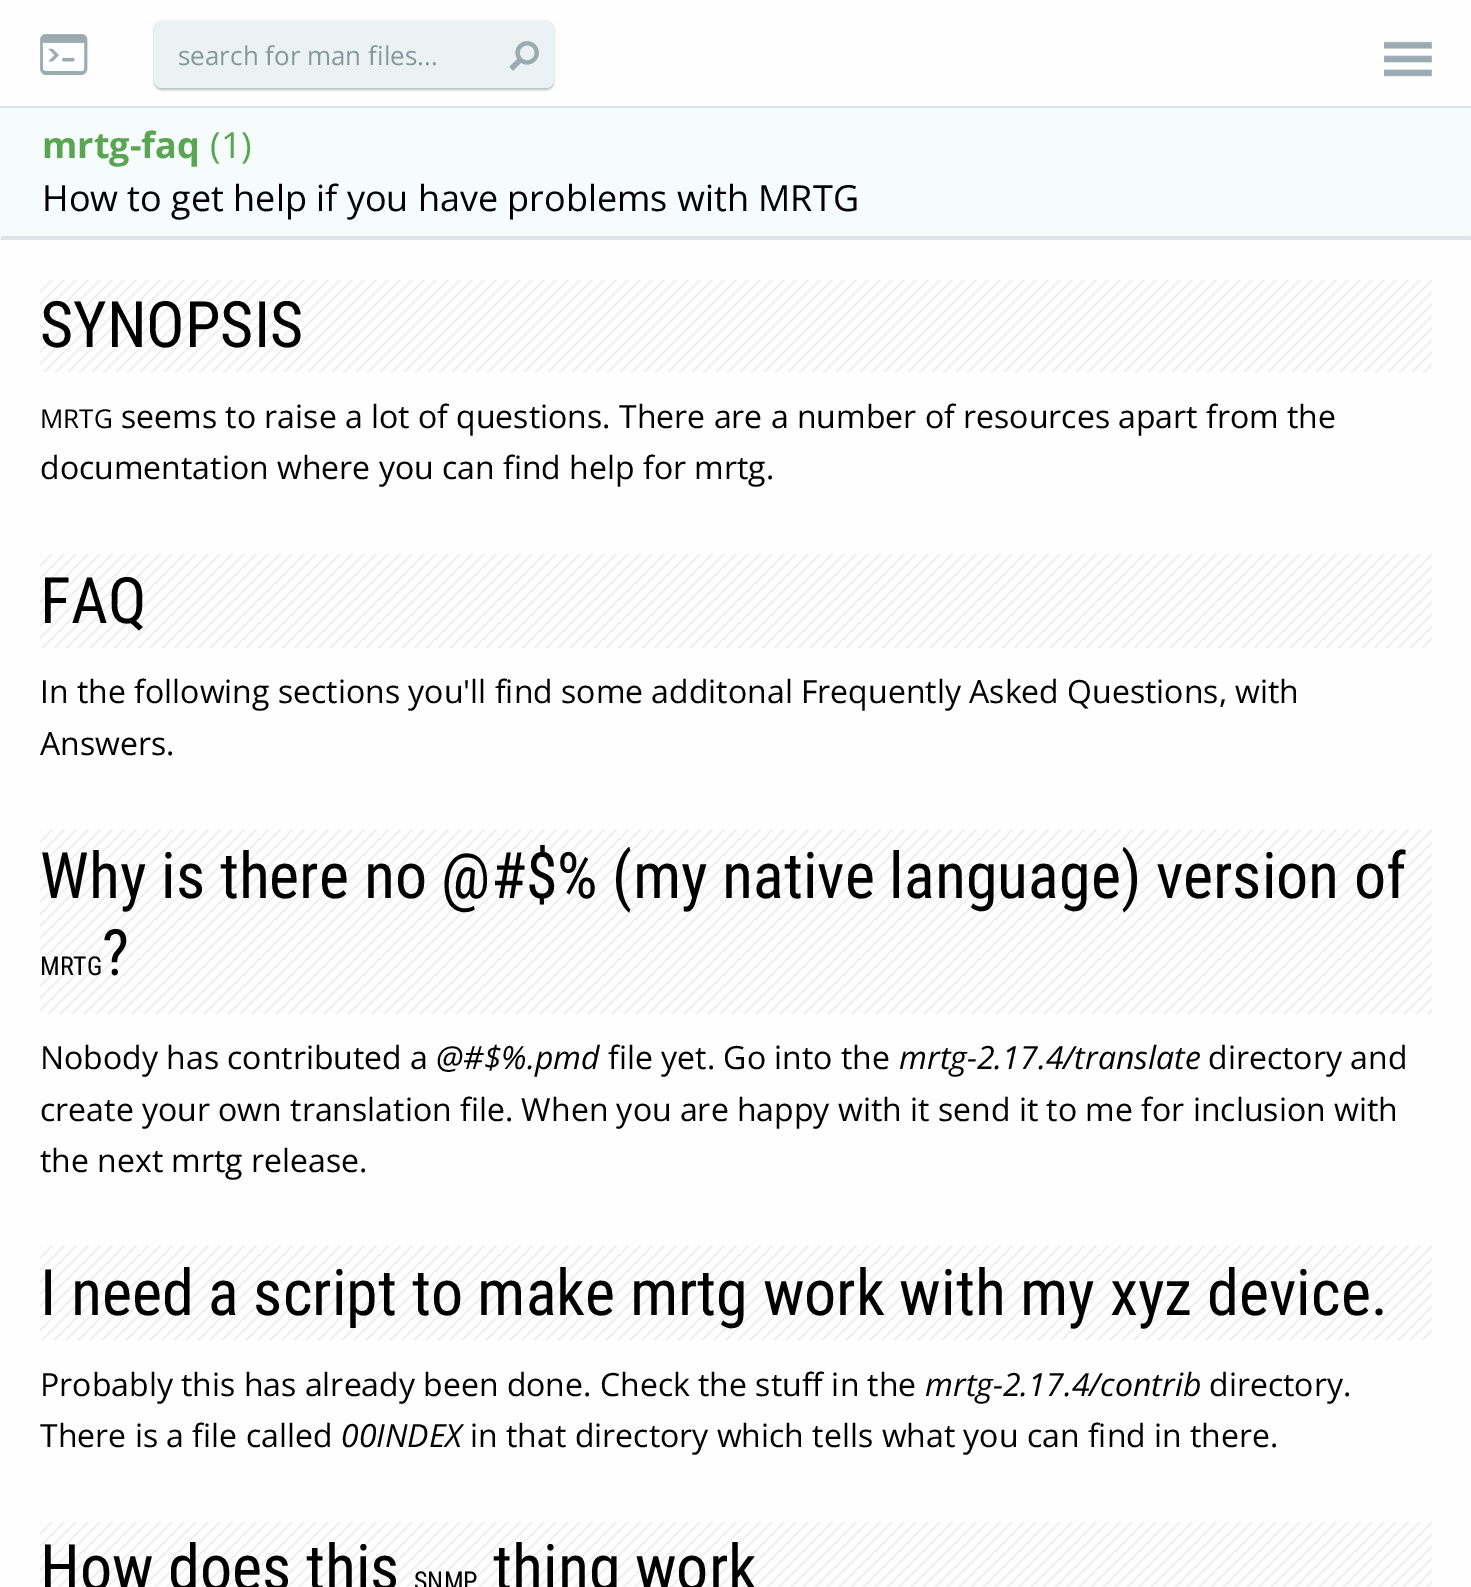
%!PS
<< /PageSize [1471 1587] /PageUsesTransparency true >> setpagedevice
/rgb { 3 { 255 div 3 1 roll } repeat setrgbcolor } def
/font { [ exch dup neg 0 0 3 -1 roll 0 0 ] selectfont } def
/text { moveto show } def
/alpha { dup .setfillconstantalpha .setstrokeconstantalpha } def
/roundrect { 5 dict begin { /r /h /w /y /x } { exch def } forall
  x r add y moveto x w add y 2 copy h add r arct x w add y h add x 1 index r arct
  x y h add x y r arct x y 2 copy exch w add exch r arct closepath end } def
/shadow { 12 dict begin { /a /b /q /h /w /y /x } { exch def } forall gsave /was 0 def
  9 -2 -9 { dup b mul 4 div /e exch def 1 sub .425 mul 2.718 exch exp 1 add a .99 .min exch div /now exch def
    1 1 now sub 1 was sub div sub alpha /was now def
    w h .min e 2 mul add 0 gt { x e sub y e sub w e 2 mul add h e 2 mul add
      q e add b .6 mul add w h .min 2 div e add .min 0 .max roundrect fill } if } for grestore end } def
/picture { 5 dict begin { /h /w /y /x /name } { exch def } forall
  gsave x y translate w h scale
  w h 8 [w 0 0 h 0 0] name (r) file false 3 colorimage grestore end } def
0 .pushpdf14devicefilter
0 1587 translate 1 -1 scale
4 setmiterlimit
254 254 254 rgb
0 0 1471 1587 rectfill
220 229 231 rgb
0 106 1471 2 rectfill
(img_01.rgb) 40 34 49 42 picture
6 47 55 rgb
154 22 400 68 8 1 0.3 shadow
234 242 244 rgb
154 20 400 68 8 roundrect fill
(img_02.rgb) 509 41 30 30 picture
(img_03.rgb) 1384 41 48 36 picture
246 251 252 rgb
0 108 1471 132 rectfill
223 227 233 rgb
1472 240 moveto -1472 0 rlineto 2 -4 rlineto 1468 0 rlineto closepath fill
(img_04.rgb) 40 280 1392 92 picture
(img_05.rgb) 40 554 1392 94 picture
(img_06.rgb) 40 830 1392 184 picture
(img_05.rgb) 40 1246 1392 94 picture
(img_07.rgb) 40 1522 1392 65 picture
/OpenSans-Regular 26 font
134 150 157 rgb
(search for man files...) 178 65 text
/OpenSans-Bold 36 font
89 165 82 rgb
(mrtg-faq) 42 158 text
/OpenSans-Regular 36 font
(\(1\)) 210 158 text
0 0 0 rgb
(How to get help if you have problems with MRTG) 42 211 text
/RobotoCondensed-Regular 64 font
(SYNOPSIS) 40 347 text
/OpenSans-Regular 26 font
(MRTG) 40 428 text
/OpenSans-Regular 32 font
(seems to raise a lot of questions. There are a number of resources apart from the) 121 428 text
(documentation where you can find help for mrtg.) 40 479 text
/RobotoCondensed-Regular 64 font
(FAQ) 40 623 text
/OpenSans-Regular 32 font
(In the following sections you'll find some additonal Frequently Asked Questions, with) 40 703 text
(Answers.) 40 755 text
/RobotoCondensed-Regular 64 font
(Why is there no @#$% \(my native language\) version of) 40 898 text
/RobotoCondensed-Regular 26 font
(MRTG) 40 975 text
/RobotoCondensed-Regular 64 font
(?) 102 975 text
/OpenSans-Regular 32 font
(Nobody has contributed a) 40 1069 text
/OpenSans-Italic 32 font
(@#$%.pmd) 436 1069 text
/OpenSans-Regular 32 font
(file yet. Go into the) 608 1069 text
/OpenSans-Italic 32 font
(mrtg-2.17.4/translate) 899 1069 text
/OpenSans-Regular 32 font
(directory and) 1208 1069 text
(create your own translation file. When you are happy with it send it to me for inclusion with) 40 1121 text
(the next mrtg release.) 40 1172 text
/RobotoCondensed-Regular 64 font
(I need a script to make mrtg work with my xyz device.) 40 1315 text
/OpenSans-Regular 32 font
(Probably this has already been done. Check the stuff in the) 40 1396 text
/OpenSans-Italic 32 font
(mrtg-2.17.4/contrib) 925 1396 text
/OpenSans-Regular 32 font
(directory.) 1209 1396 text
(There is a file called) 40 1447 text
/OpenSans-Italic 32 font
(00INDEX) 341 1447 text
/OpenSans-Regular 32 font
(in that directory which tells what you can find in there.) 470 1447 text
/RobotoCondensed-Regular 64 font
(How does this) 40 1590 text
/RobotoCondensed-Regular 26 font
(SNMP) 414 1590 text
/RobotoCondensed-Regular 64 font
(thing work) 493 1590 text
.poppdf14devicefilter showpage
